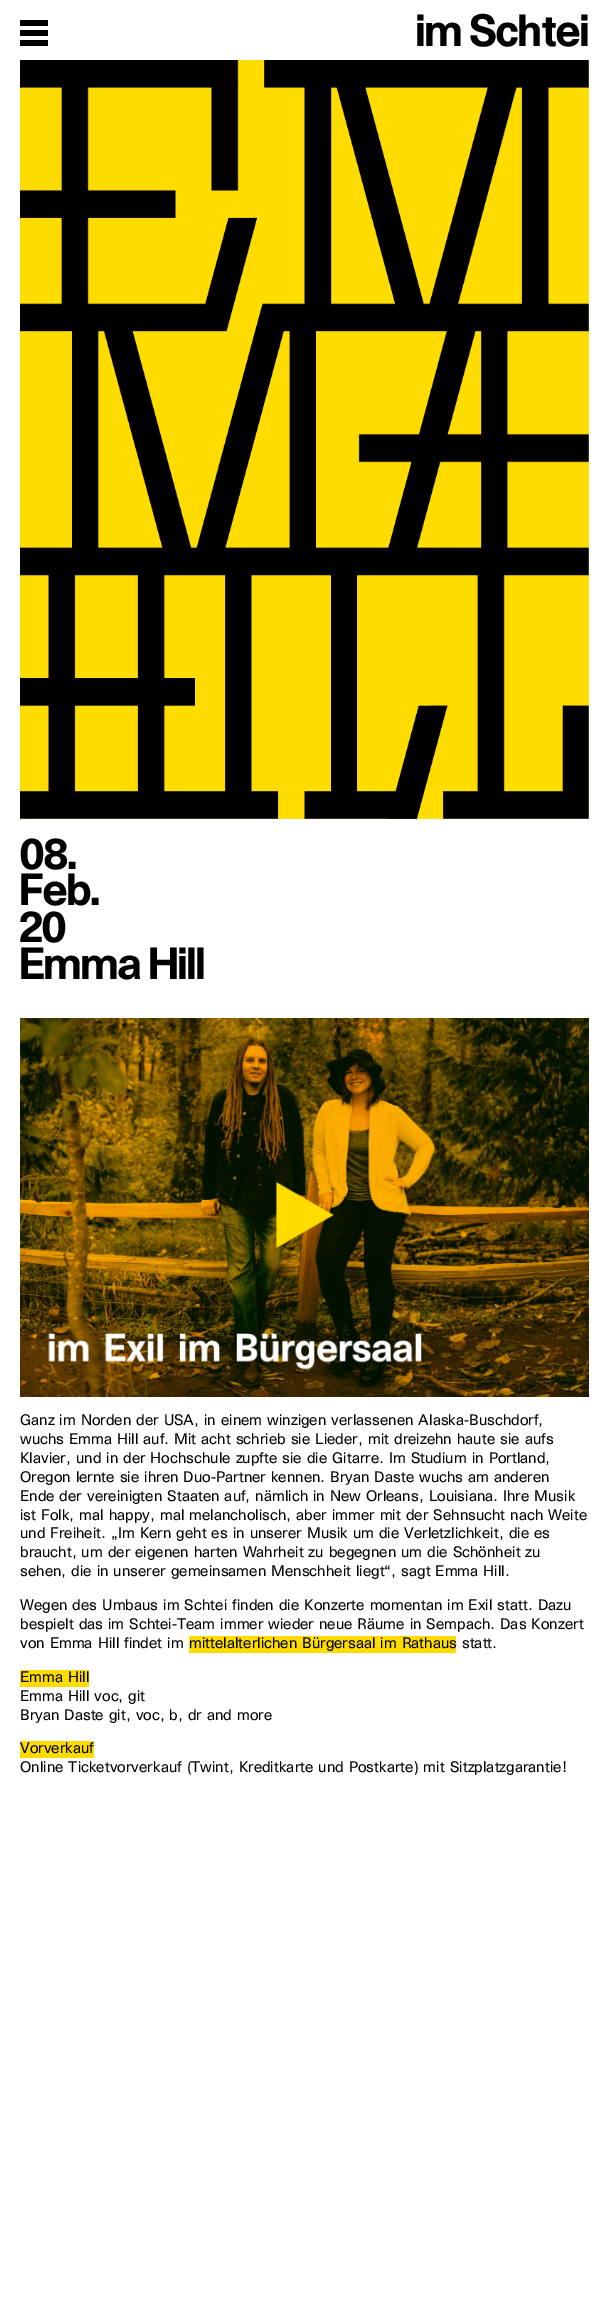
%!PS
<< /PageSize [609 2307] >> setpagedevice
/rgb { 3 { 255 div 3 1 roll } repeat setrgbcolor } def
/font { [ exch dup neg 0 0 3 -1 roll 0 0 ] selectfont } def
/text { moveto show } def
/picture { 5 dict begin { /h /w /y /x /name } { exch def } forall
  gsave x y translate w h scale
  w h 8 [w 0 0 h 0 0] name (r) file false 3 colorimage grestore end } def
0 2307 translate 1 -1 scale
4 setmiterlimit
255 255 255 rgb
0 0 609 2307 rectfill
0 0 0 rgb
20 20 28 6 rectfill
20 30 28 6 rectfill
20 40 28 6 rectfill
(img_01.rgb) 20 60 569 759 picture
(img_02.rgb) 20 1018 569 379 picture
(img_03.rgb) 276 1181 58 67 picture
255 220 0 rgb
189 1636 267 17 rectfill
20 1670 69 17 rectfill
20 1741 74 17 rectfill
/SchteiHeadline-Regular 42 font
0 0 0 rgb
(im Schtei) 416 46 text
(08.) 20 869 text
(Feb.) 20 905 text
(20) 20 942 text
(Emma Hill) 20 979 text
/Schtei-Regular 14 font
(Ganz im Norden der USA, in einem winzigen verlassenen Alaska-Buschdorf,) 20 1425 text
(wuchs Emma Hill auf. Mit acht schrieb sie Lieder, mit dreizehn haute sie aufs) 20 1444 text
(Klavier, und in der Hochschule zupfte sie die Gitarre. Im Studium in Portland,) 20 1463 text
(Oregon lernte sie ihren Duo-Partner kennen. Bryan Daste wuchs am anderen) 20 1482 text
(Ende der vereinigten Staaten auf, nämlich in New Orleans, Louisiana. Ihre Musik) 20 1501 text
(ist Folk, mal happy, mal melancholisch, aber immer mit der Sehnsucht nach Weite) 20 1520 text
(und Freiheit. „Im Kern geht es in unserer Musik um die Verletzlichkeit, die es) 20 1538 text
(braucht, um der eigenen harten Wahrheit zu begegnen um die Schönheit zu) 20 1557 text
(sehen, die in unserer gemeinsamen Menschheit liegt“, sagt Emma Hill.) 20 1576 text
(Wegen des Umbaus im Schtei finden die Konzerte momentan im Exil statt. Dazu) 20 1610 text
(bespielt das im Schtei-Team immer wieder neue Räume in Sempach. Das Konzert) 20 1629 text
(von Emma Hill findet im) 20 1648 text
(mittelalterlichen Bürgersaal im Rathaus statt.) 189 1648 text
(Emma Hill) 20 1682 text
(Emma Hill voc, git) 20 1701 text
(Bryan Daste git, voc, b, dr and more) 20 1720 text
(Vorverkauf) 20 1753 text
(Online Ticketvorverkauf \(Twint, Kreditkarte und Postkarte\) mit Sitzplatzgarantie!) 20 1772 text
showpage
